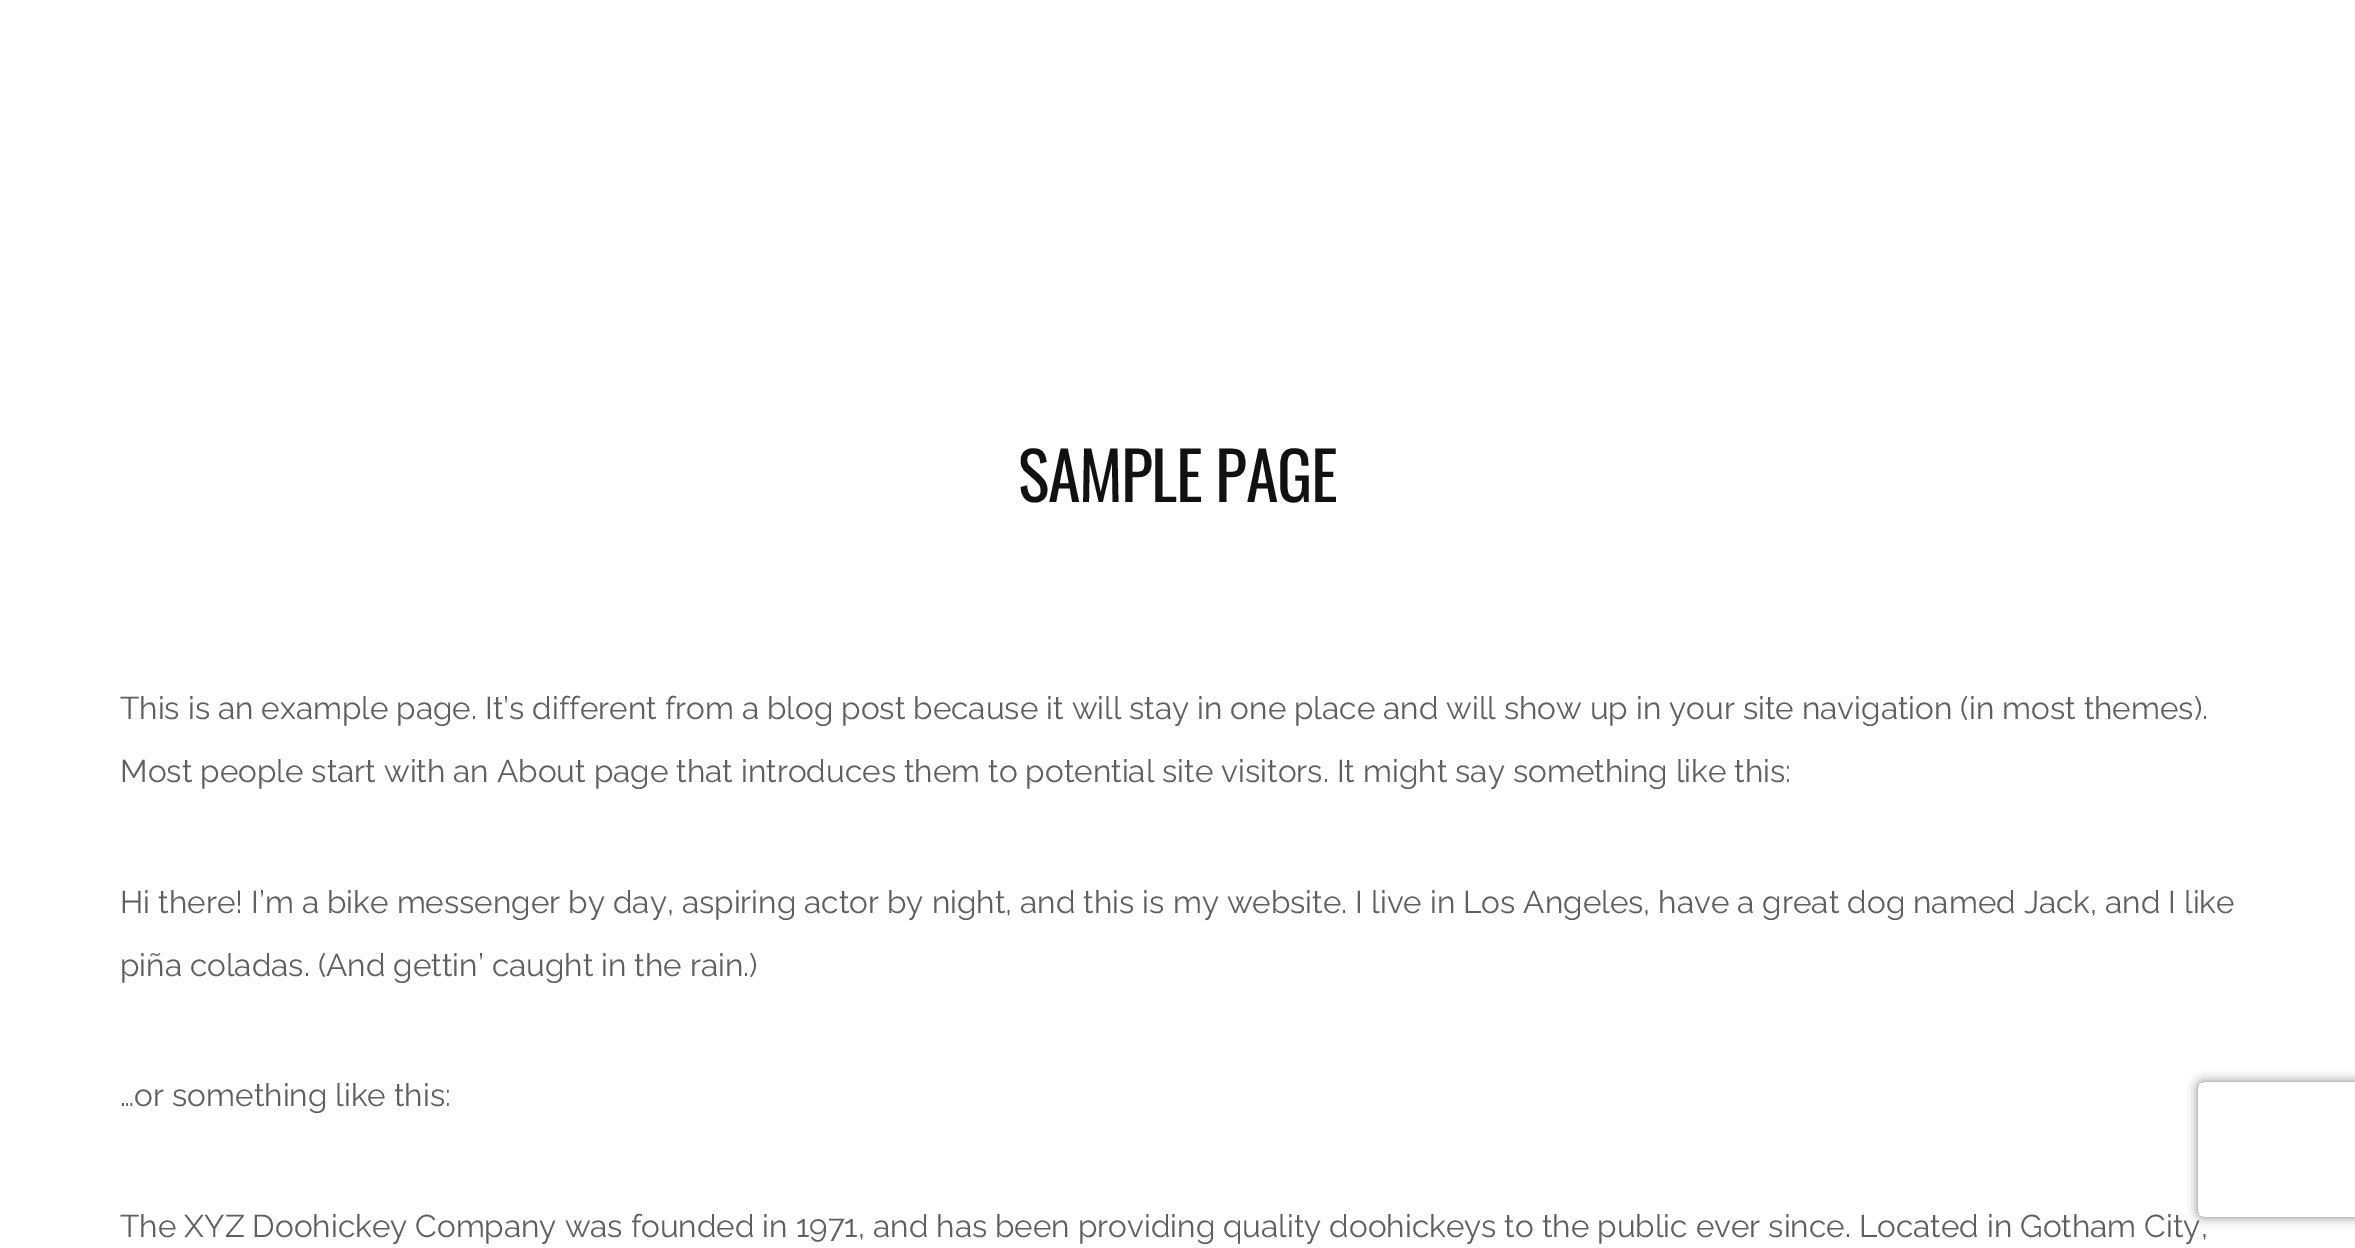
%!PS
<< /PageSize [2355 1248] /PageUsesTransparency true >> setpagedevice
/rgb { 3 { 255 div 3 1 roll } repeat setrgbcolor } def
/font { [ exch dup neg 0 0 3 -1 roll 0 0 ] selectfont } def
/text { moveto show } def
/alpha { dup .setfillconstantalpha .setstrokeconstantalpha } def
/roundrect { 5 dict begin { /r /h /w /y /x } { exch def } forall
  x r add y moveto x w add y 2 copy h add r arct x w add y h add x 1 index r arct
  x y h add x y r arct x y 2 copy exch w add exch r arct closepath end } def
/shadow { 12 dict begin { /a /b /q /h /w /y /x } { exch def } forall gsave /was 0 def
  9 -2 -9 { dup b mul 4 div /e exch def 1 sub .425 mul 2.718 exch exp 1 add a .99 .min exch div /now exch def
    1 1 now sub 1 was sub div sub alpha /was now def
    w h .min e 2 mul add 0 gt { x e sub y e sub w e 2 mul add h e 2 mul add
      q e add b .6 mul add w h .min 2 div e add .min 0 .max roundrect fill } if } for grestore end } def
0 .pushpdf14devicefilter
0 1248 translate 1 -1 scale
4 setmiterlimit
255 255 255 rgb
0 0 2355 1248 rectfill
gsave
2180 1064 moveto 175 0 rlineto 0 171 rlineto -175 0 rlineto closepath 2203 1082 moveto 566 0 rlineto 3 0 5 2 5 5 rcurveto 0 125 rlineto 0 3 -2 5 -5 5 rcurveto -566 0 rlineto -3 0 -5 -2 -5 -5 rcurveto 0 -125 rlineto 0 -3 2 -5 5 -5 rcurveto closepath eoclip newpath
128 128 128 rgb
2198 1082 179 135 5 5.5 1 shadow
grestore
/Oswald-Regular 66 font
17 17 17 rgb
1018 502 moveto -1.4 0 (SAMPLE PAGE) ashow
/Raleway-Regular 31.5 font
95 95 95 rgb
(This is an example page. It’s different from a blog post because it will stay in one place and will show up in your site navigation \(in most themes\).) 120 719 text
(Most people start with an About page that introduces them to potential site visitors. It might say something like this:) 120 782 text
(Hi there! I’m a bike messenger by day, aspiring actor by night, and this is my website. I live in Los Angeles, have a great dog named Jack, and I like) 120 913 text
(piña coladas. \(And gettin’ caught in the rain.\)) 120 976 text
(…or something like this:) 120 1106 text
(The XYZ Doohickey Company was founded in 1971, and has been providing quality doohickeys to the public ever since. Located in Gotham City,) 120 1237 text
.poppdf14devicefilter showpage
